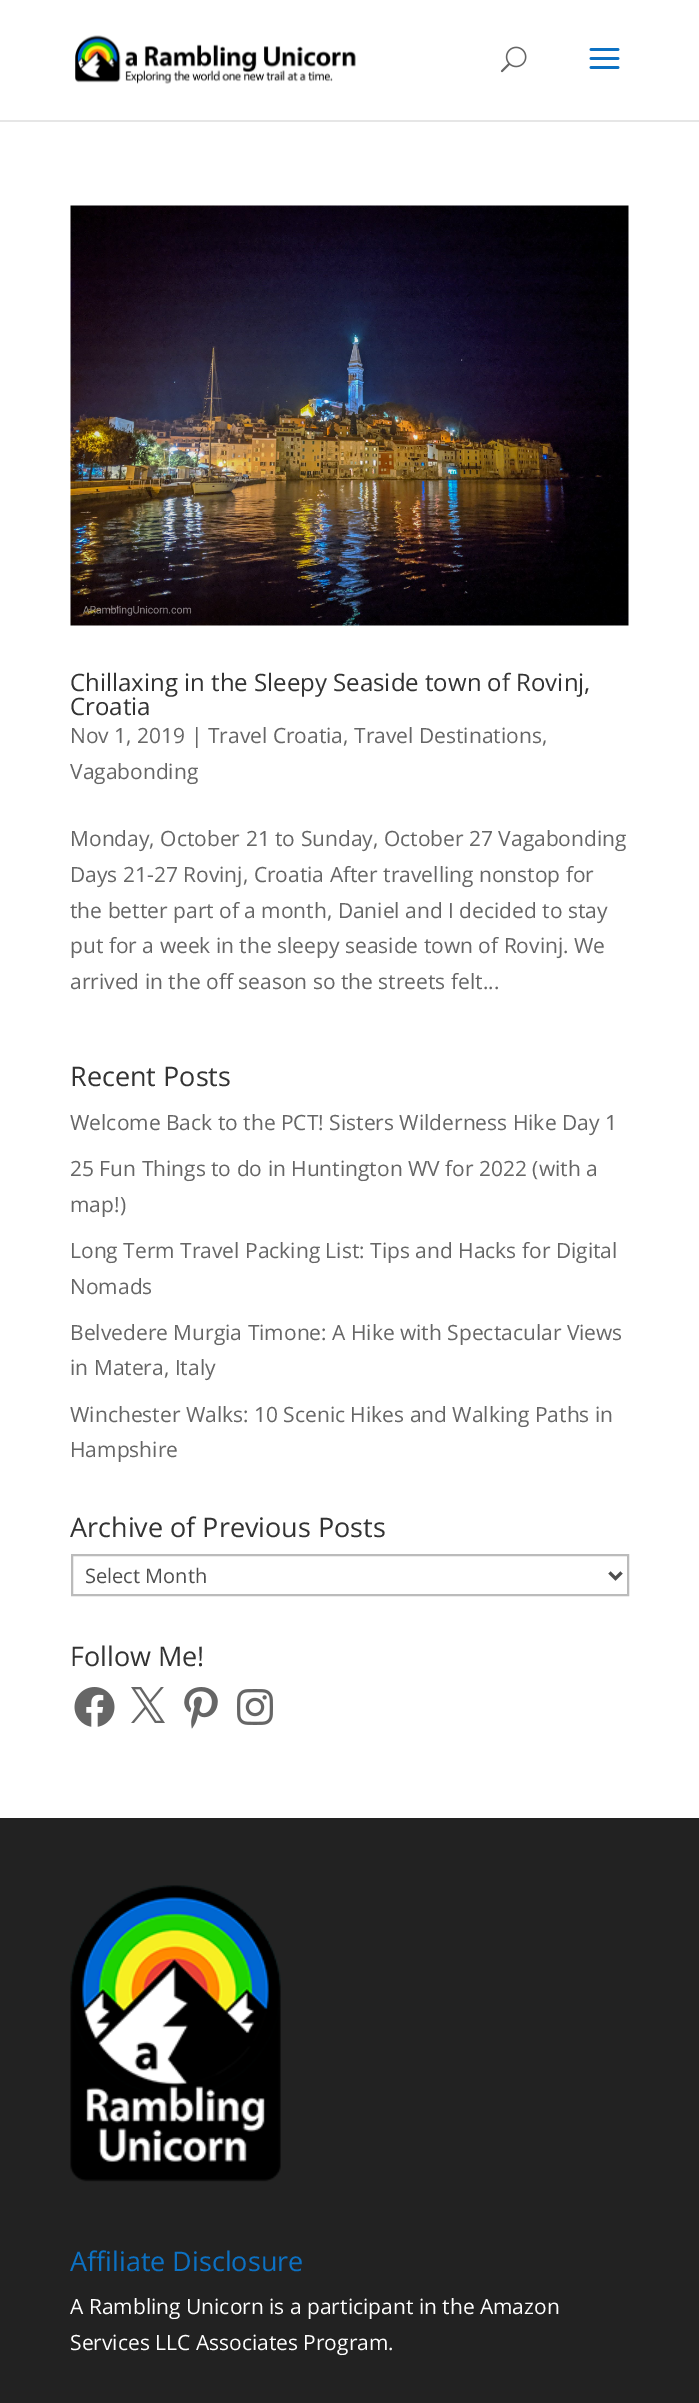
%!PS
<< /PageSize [699 2403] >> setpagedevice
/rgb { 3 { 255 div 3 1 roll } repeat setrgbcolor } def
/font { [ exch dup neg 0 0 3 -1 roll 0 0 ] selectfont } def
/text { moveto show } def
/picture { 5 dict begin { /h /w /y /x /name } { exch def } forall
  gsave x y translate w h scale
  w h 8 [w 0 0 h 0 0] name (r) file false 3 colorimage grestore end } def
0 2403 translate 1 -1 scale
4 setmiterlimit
255 255 255 rgb
0 0 699 2403 rectfill
230 230 230 rgb
0 120 699 2 rectfill
(img_01.rgb) 75 35 281 49 picture
(img_02.rgb) 500 46 27 27 picture
(img_03.rgb) 589 48 31 21 picture
(img_04.rgb) 70 205 559 421 picture
187 187 187 rgb
2 setlinewidth
72 1555 556 40 rectstroke
78 78 78 rgb
3 setlinewidth
609.5 1572.5 moveto 6 6 rlineto 6 -6 rlineto stroke
(img_05.rgb) 74 1687 41 40 picture
(img_06.rgb) 131 1687 34 36 picture
(img_07.rgb) 184 1687 34 42 picture
(img_08.rgb) 237 1689 36 36 picture
34 34 34 rgb
0 1818 699 585 rectfill
(img_09.rgb) 70 1885 211 297 picture
/OpenSans-Regular 24 font
51 51 51 rgb
(Chillaxing in the Sleepy Seaside town of Rovinj,) 70 691 text
(Croatia) 70 715 text
/OpenSans-Regular 21 font
102 102 102 rgb
(Nov 1, 2019 | Travel Croatia, Travel Destinations,) 70 743 text
(Vagabonding) 70 779 text
(Monday, October 21 to Sunday, October 27 Vagabonding) 70 846 text
(Days 21-27 Rovinj, Croatia After travelling nonstop for) 70 882 text
(the better part of a month, Daniel and I decided to stay) 70 918 text
(put for a week in the sleepy seaside town of Rovinj. We) 70 953 text
(arrived in the off season so the streets felt...) 70 989 text
/OpenSans-Regular 27 font
51 51 51 rgb
(Recent Posts) 70 1086 text
/OpenSans-Regular 21 font
102 102 102 rgb
(Welcome Back to the PCT! Sisters Wilderness Hike Day 1) 70 1130 text
(25 Fun Things to do in Huntington WV for 2022 \(with a) 70 1176 text
(map!\)) 70 1212 text
(Long Term Travel Packing List: Tips and Hacks for Digital) 70 1258 text
(Nomads) 70 1294 text
(Belvedere Murgia Timone: A Hike with Spectacular Views) 70 1340 text
(in Matera, Italy) 70 1375 text
(Winchester Walks: 10 Scenic Hikes and Walking Paths in) 70 1422 text
(Hampshire) 70 1457 text
/OpenSans-Regular 27 font
51 51 51 rgb
(Archive of Previous Posts) 70 1537 text
/OpenSans-Regular 20 font
78 78 78 rgb
(Select Month) 85 1583 text
/OpenSans-Regular 27 font
51 51 51 rgb
(Follow Me!) 70 1666 text
12 113 195 rgb
(Affiliate Disclosure) 70 2271 text
/OpenSans-Regular 21 font
255 255 255 rgb
(A Rambling Unicorn is a participant in the Amazon) 70 2314 text
(Services LLC Associates Program.) 70 2350 text
showpage
